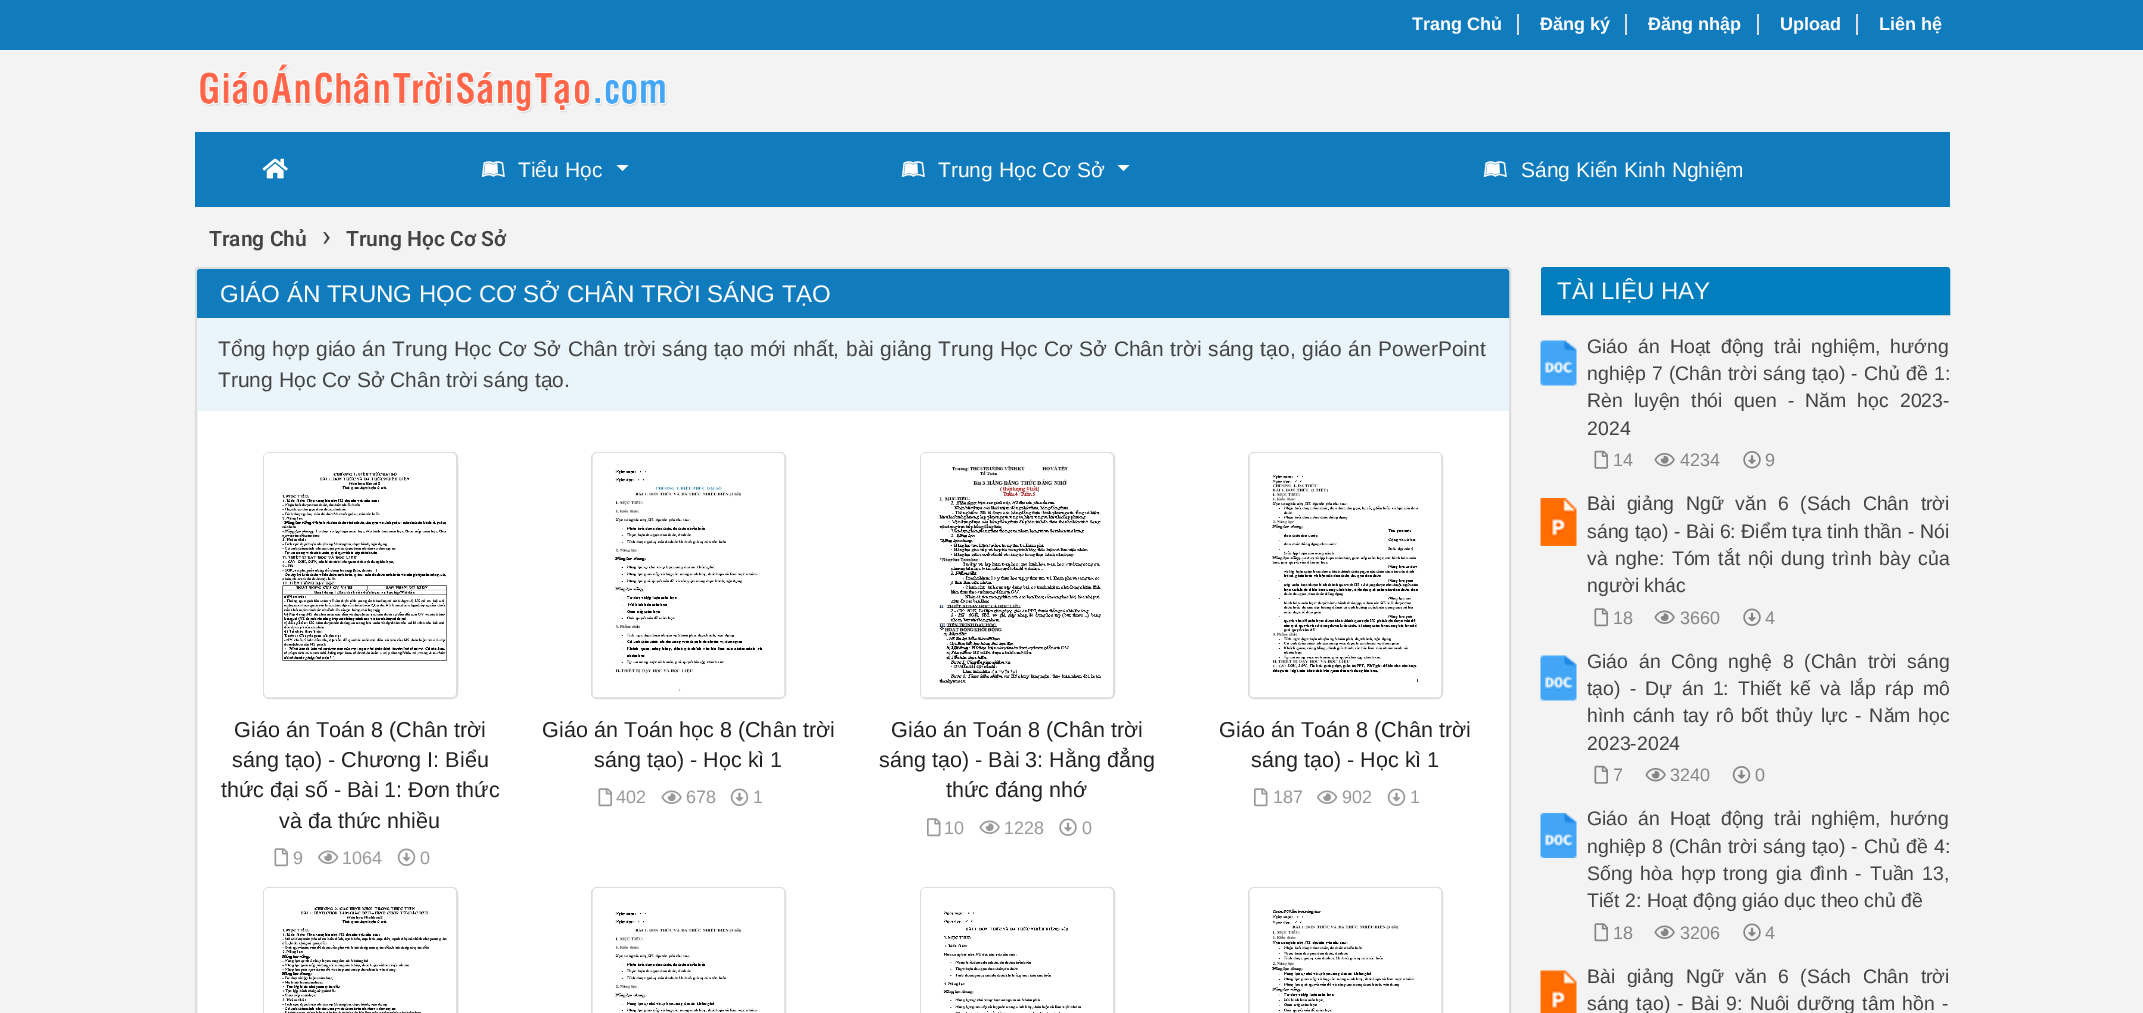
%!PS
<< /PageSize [2143 1013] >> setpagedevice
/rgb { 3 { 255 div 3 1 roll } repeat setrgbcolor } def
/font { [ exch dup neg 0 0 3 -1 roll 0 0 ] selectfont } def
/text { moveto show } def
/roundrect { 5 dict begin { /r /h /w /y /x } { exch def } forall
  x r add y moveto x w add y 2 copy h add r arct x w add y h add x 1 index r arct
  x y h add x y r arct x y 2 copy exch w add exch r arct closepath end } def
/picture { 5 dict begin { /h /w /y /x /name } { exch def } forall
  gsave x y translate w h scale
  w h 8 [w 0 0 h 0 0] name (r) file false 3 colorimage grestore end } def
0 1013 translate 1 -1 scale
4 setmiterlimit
243 243 243 rgb
0 0 2143 1013 rectfill
16 123 189 rgb
0 0 2143 50 rectfill
221 221 221 rgb
1517 14 2 21 rectfill
1625 14 2 21 rectfill
1757 14 2 21 rectfill
1856 14 2 21 rectfill
(img_01.rgb) 199 63 468 51 picture
16 123 189 rgb
195 132 1755 75 rectfill
(img_02.rgb) 262 158 26 21 picture
(img_03.rgb) 481 161 24 16 picture
255 255 255 rgb
616.5 165 moveto 12 0 rlineto -6 6 rlineto closepath fill
(img_03.rgb) 901 161 24 16 picture
1117.5 165 moveto 12 0 rlineto -6 6 rlineto closepath fill
(img_03.rgb) 1483 161 24 16 picture
196 268 1314 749 2 roundrect gsave fill grestore
221 221 221 rgb
2 setlinewidth
stroke
16 123 189 rgb
200 270 moveto 1306 0 rlineto 1 0 2 1 2 2 rcurveto 0 45 rlineto -1310 0 rlineto 0 -45 rlineto 0 -1 1 -2 2 -2 rcurveto closepath gsave fill grestore
stroke
234 245 251 rgb
197 318 1312 93 rectfill
221 221 221 rgb
264 453 193 245 5 roundrect stroke
(img_04.rgb) 264 453 192 245 picture
(img_05.rgb) 274 848 14 19 picture
(img_06.rgb) 318 850 21 14 picture
(img_07.rgb) 397 848 19 18 picture
592 453 193 245 5 roundrect stroke
(img_08.rgb) 592 453 193 245 picture
(img_05.rgb) 598 788 14 19 picture
(img_09.rgb) 661 790 21 14 picture
(img_07.rgb) 730 788 19 18 picture
921 453 193 245 5 roundrect stroke
(img_10.rgb) 921 453 192 245 picture
(img_11.rgb) 927 818 14 19 picture
(img_09.rgb) 979 820 21 14 picture
(img_12.rgb) 1059 818 18 18 picture
1249 453 193 245 5 roundrect stroke
(img_13.rgb) 1249 453 193 245 picture
(img_11.rgb) 1254 788 14 19 picture
(img_06.rgb) 1317 790 21 14 picture
(img_07.rgb) 1387 788 19 18 picture
264 888 193 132 5 roundrect stroke
(img_14.rgb) 264 888 192 125 picture
592 888 193 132 5 roundrect stroke
(img_15.rgb) 592 888 193 125 picture
921 888 193 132 5 roundrect stroke
(img_16.rgb) 921 888 192 125 picture
1249 888 193 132 5 roundrect stroke
(img_17.rgb) 1249 888 193 125 picture
1 126 190 rgb
1544 268 moveto 403 0 rlineto 1 0 2 1 2 2 rcurveto 0 44 rlineto -407 0 rlineto 0 -44 rlineto 0 -1 1 -2 2 -2 rcurveto closepath gsave fill grestore
stroke
(img_18.rgb) 1540 340 37 46 picture
(img_19.rgb) 1594 450 14 19 picture
(img_20.rgb) 1654 453 21 14 picture
(img_21.rgb) 1743 451 18 18 picture
(img_22.rgb) 1540 498 37 48 picture
(img_23.rgb) 1594 608 14 19 picture
(img_24.rgb) 1654 610 21 14 picture
(img_25.rgb) 1743 608 18 18 picture
(img_18.rgb) 1540 655 37 46 picture
(img_19.rgb) 1594 765 14 19 picture
(img_20.rgb) 1645 768 21 14 picture
(img_26.rgb) 1732 766 19 18 picture
(img_27.rgb) 1540 813 37 45 picture
(img_23.rgb) 1594 923 14 19 picture
(img_24.rgb) 1654 925 21 14 picture
(img_25.rgb) 1743 923 18 18 picture
(img_28.rgb) 1540 970 37 43 picture
/LiberationSans-Bold 18 font
255 255 255 rgb
(Trang Chủ) 1412 30 text
(Đăng ký) 1540 30 text
(Đăng nhập) 1648 30 text
(Upload) 1780 30 text
(Liên hệ) 1879 30 text
/LiberationSans-Regular 21 font
(Tiểu Học) 518 177 text
(Trung Học Cơ Sở) 938 177 text
(Sáng Kiến Kinh Nghiệm) 1521 177 text
/Roboto-SemiBold 21 font
68 68 68 rgb
(Trang Chủ) 209 246 text
/Roboto-Regular 30 font
(›) 322 246 text
/Roboto-SemiBold 21 font
(Trung Học Cơ Sở) 346 246 text
/LiberationSans-Regular 24 font
255 255 255 rgb
(GIÁO ÁN TRUNG HỌC CƠ SỞ CHÂN TRỜI SÁNG TẠO) 220 302 text
/LiberationSans-Regular 21 font
68 68 68 rgb
218 356 moveto 0.75 0 32 (Tổng hợp giáo án Trung Học Cơ Sở Chân trời sáng tạo mới nhất, bài giảng Trung Học Cơ Sở Chân trời sáng tạo, giáo án PowerPoint) widthshow
(Trung Học Cơ Sở Chân trời sáng tạo.) 218 387 text
/LiberationSans-Regular 21.6 font
34 34 34 rgb
(Giáo án Toán 8 \(Chân trời) 234 737 text
(sáng tạo\) - Chương I: Biểu) 232 767 text
(thức đại số - Bài 1: Đơn thức) 221 797 text
(và đa thức nhiều) 279 828 text
/LiberationSans-Regular 18 font
153 153 153 rgb
(9) 293 864 text
(1064) 342 864 text
(0) 420 864 text
/LiberationSans-Regular 21.6 font
34 34 34 rgb
(Giáo án Toán học 8 \(Chân trời) 542 737 text
(sáng tạo\) - Học kì 1) 594 767 text
/LiberationSans-Regular 18 font
153 153 153 rgb
(402) 616 803 text
(678) 686 803 text
(1) 753 803 text
/LiberationSans-Regular 21.6 font
34 34 34 rgb
(Giáo án Toán 8 \(Chân trời) 891 737 text
(sáng tạo\) - Bài 3: Hằng đẳng) 879 767 text
(thức đáng nhớ) 946 797 text
/LiberationSans-Regular 18 font
153 153 153 rgb
(10) 944 834 text
(1228) 1004 834 text
(0) 1082 834 text
/LiberationSans-Regular 21.6 font
34 34 34 rgb
(Giáo án Toán 8 \(Chân trời) 1219 737 text
(sáng tạo\) - Học kì 1) 1251 767 text
/LiberationSans-Regular 18 font
153 153 153 rgb
(187) 1273 803 text
(902) 1342 803 text
(1) 1410 803 text
/LiberationSans-Regular 24 font
255 255 255 rgb
(TÀI LIỆU HAY) 1557 299 text
/LiberationSans-Regular 19.5 font
68 68 68 rgb
1587 353 moveto 4.5 0 32 (Giáo án Hoạt động trải nghiệm, hướng) widthshow
1587 380 moveto 0.75 0 32 (nghiệp 7 \(Chân trời sáng tạo\) - Chủ đề 1:) widthshow
1587 407 moveto 5.5 0 32 (Rèn luyện thói quen - Năm học 2023-) widthshow
(2024) 1587 435 text
/LiberationSans-Regular 18 font
135 134 134 rgb
(14) 1613 466 text
(4234) 1680 466 text
(9) 1765 466 text
/LiberationSans-Regular 19.5 font
68 68 68 rgb
1587 510 moveto 6 0 32 (Bài giảng Ngữ văn 6 \(Sách Chân trời) widthshow
1587 538 moveto 0.1 0 32 (sáng tạo\) - Bài 6: Điểm tựa tinh thần - Nói) widthshow
1587 565 moveto 2.25 0 32 (và nghe: Tóm tắt nội dung trình bày của) widthshow
(người khác) 1587 592 text
/LiberationSans-Regular 18 font
135 134 134 rgb
(18) 1613 624 text
(3660) 1680 624 text
(4) 1765 624 text
/LiberationSans-Regular 19.5 font
68 68 68 rgb
1587 668 moveto 5.25 0 32 (Giáo án Công nghệ 8 \(Chân trời sáng) widthshow
1587 695 moveto 3.75 0 32 (tạo\) - Dự án 1: Thiết kế và lắp ráp mô) widthshow
1587 722 moveto 2.25 0 32 (hình cánh tay rô bốt thủy lực - Năm học) widthshow
(2023-2024) 1587 750 text
/LiberationSans-Regular 18 font
135 134 134 rgb
(7) 1613 781 text
(3240) 1670 781 text
(0) 1755 781 text
/LiberationSans-Regular 19.5 font
68 68 68 rgb
1587 825 moveto 4.5 0 32 (Giáo án Hoạt động trải nghiệm, hướng) widthshow
1587 853 moveto 0.75 0 32 (nghiệp 8 \(Chân trời sáng tạo\) - Chủ đề 4:) widthshow
1587 880 moveto 2.5 0 32 (Sống hòa hợp trong gia đình - Tuần 13,) widthshow
(Tiết 2: Hoạt động giáo dục theo chủ đề) 1587 907 text
/LiberationSans-Regular 18 font
135 134 134 rgb
(18) 1613 939 text
(3206) 1680 939 text
(4) 1765 939 text
/LiberationSans-Regular 19.5 font
68 68 68 rgb
1587 983 moveto 6 0 32 (Bài giảng Ngữ văn 6 \(Sách Chân trời) widthshow
1587 1010 moveto 1.75 0 32 (sáng tạo\) - Bài 9: Nuôi dưỡng tâm hồn -) widthshow
showpage
